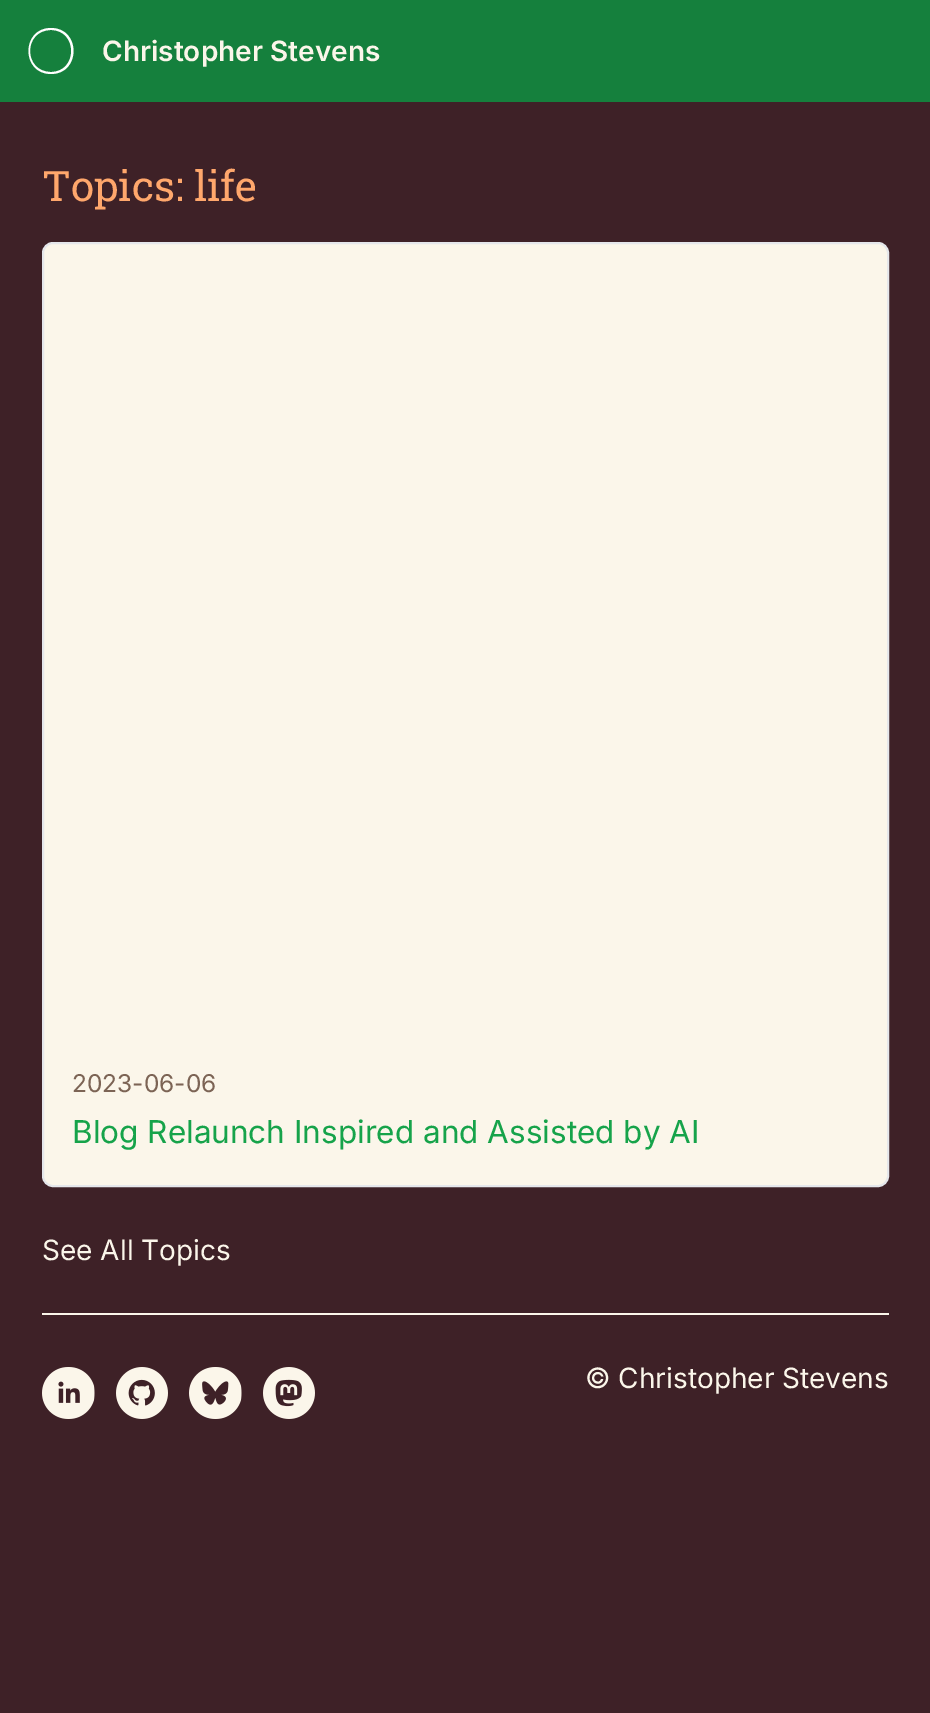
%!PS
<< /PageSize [930 1713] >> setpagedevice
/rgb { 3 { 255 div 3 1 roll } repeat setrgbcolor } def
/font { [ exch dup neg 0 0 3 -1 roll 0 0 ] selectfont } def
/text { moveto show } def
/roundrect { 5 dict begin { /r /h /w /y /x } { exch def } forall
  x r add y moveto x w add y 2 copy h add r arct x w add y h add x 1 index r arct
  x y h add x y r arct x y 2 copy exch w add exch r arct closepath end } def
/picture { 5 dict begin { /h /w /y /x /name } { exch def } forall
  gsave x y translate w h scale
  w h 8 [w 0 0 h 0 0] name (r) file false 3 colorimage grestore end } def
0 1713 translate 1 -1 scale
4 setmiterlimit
62 33 39 rgb
0 0 930 1713 rectfill
21 128 61 rgb
0 0 930 102 rectfill
255 255 255 rgb
51 30 moveto 27 0 27 42 0 42 rcurveto -28 0 -28 -42 0 -42 rcurveto 51 28 moveto -30 0 -30 46 0 46 rcurveto 30 0 30 -46 0 -46 rcurveto closepath fill
251 246 234 rgb
43 243 845 943 10 roundrect gsave fill grestore
229 231 235 rgb
2 setlinewidth
stroke
251 246 234 rgb
42 1313 847 2 rectfill
(img_01.rgb) 42 1367 53 52 picture
(img_02.rgb) 116 1367 52 52 picture
(img_03.rgb) 189 1367 53 52 picture
(img_04.rgb) 263 1367 52 52 picture
/Inter-SemiBold 28 font
(Christopher Stevens) 102 61 text
/RobotoSlab-Regular 42 font
255 167 108 rgb
(Topics: life) 42 201 text
/Inter-Regular 24.5 font
124 100 85 rgb
(2023-06-06) 72 1092 text
/Inter-Regular 31.5 font
22 163 74 rgb
(Blog Relaunch Inspired and Assisted by AI) 72 1143 text
/Inter-Regular 28 font
251 246 234 rgb
(See All Topics) 42 1260 text
(© Christopher Stevens) 585 1388 text
showpage
